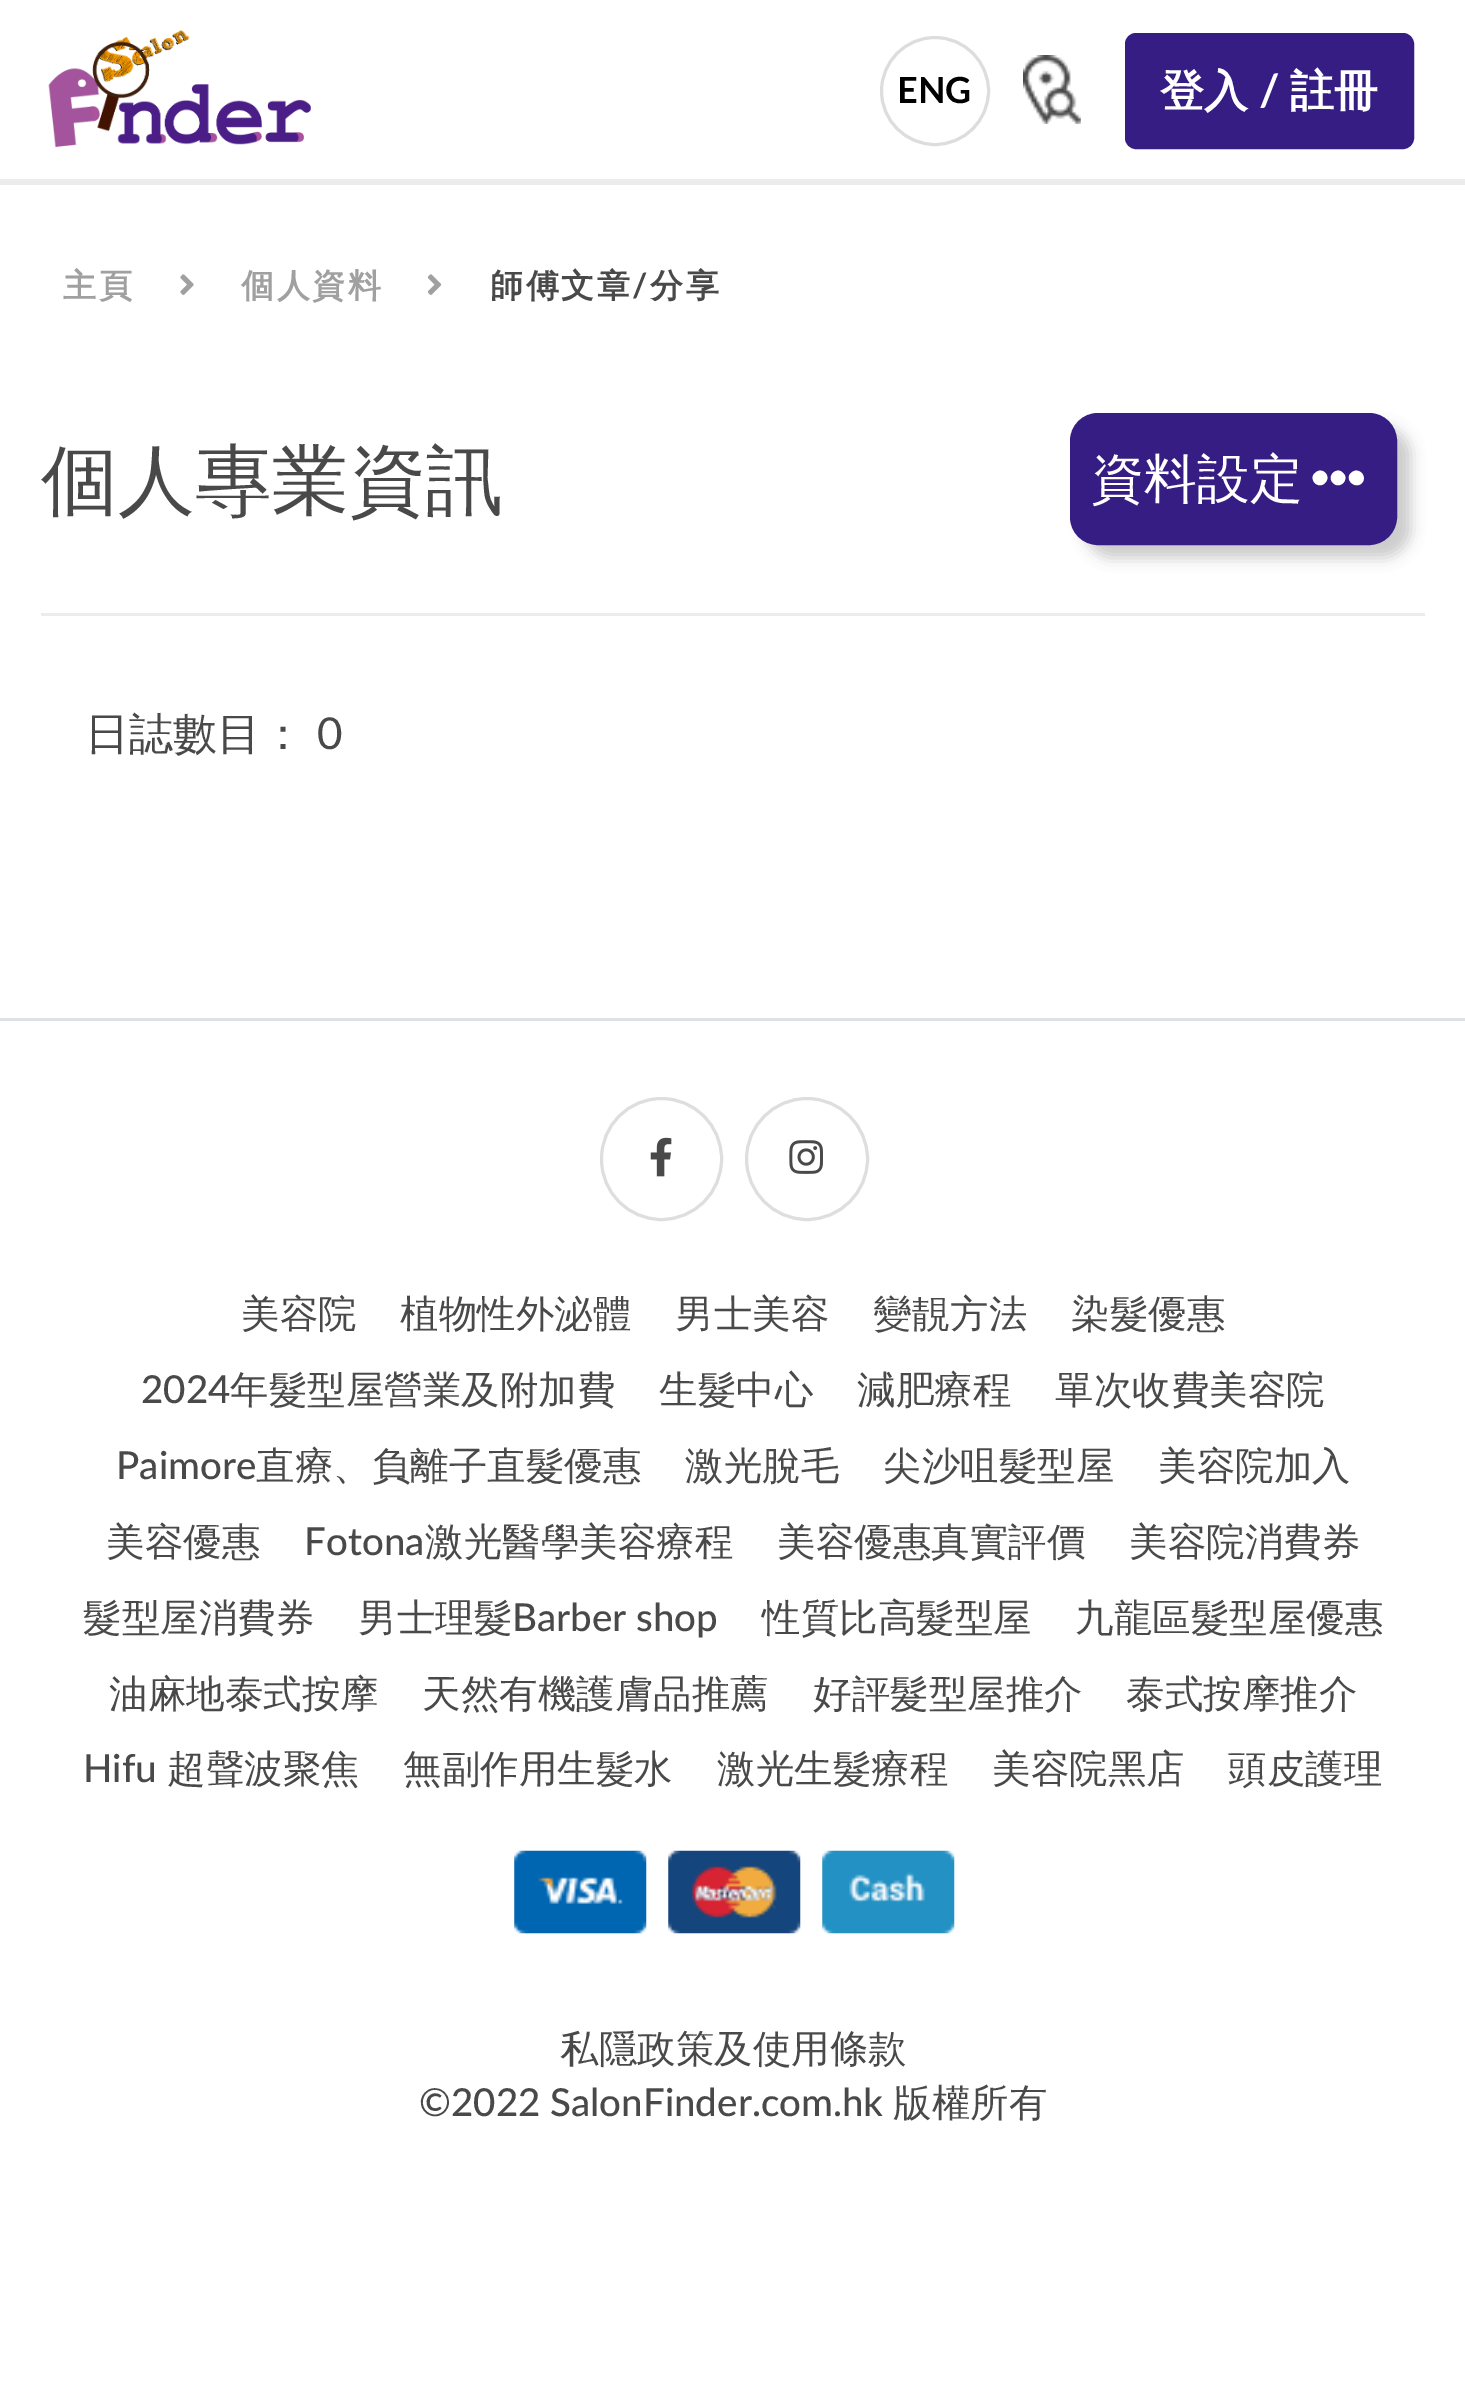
%!PS
<< /PageSize [1465 2398] /PageUsesTransparency true >> setpagedevice
/rgb { 3 { 255 div 3 1 roll } repeat setrgbcolor } def
/font { [ exch dup neg 0 0 3 -1 roll 0 0 ] selectfont } def
/text { moveto show } def
/alpha { dup .setfillconstantalpha .setstrokeconstantalpha } def
/circle { newpath 0 360 arc closepath } def
/roundrect { 5 dict begin { /r /h /w /y /x } { exch def } forall
  x r add y moveto x w add y 2 copy h add r arct x w add y h add x 1 index r arct
  x y h add x y r arct x y 2 copy exch w add exch r arct closepath end } def
/shadow { 12 dict begin { /a /b /q /h /w /y /x } { exch def } forall gsave /was 0 def
  9 -2 -9 { dup b mul 4 div /e exch def 1 sub .425 mul 2.718 exch exp 1 add a .99 .min exch div /now exch def
    1 1 now sub 1 was sub div sub alpha /was now def
    w h .min e 2 mul add 0 gt { x e sub y e sub w e 2 mul add h e 2 mul add
      q e add b .6 mul add w h .min 2 div e add .min 0 .max roundrect fill } if } for grestore end } def
/picture { 5 dict begin { /h /w /y /x /name } { exch def } forall
  gsave x y translate w h scale
  w h 8 [w 0 0 h 0 0] name (r) file false 3 colorimage grestore end } def
0 .pushpdf14devicefilter
0 2398 translate 1 -1 scale
4 setmiterlimit
255 255 255 rgb
0 0 1465 2398 rectfill
236 236 236 rgb
0 179 1465 6 rectfill
(img_01.rgb) 48 30 263 117 picture
221 221 221 rgb
3 setlinewidth
935 91 53.5 circle stroke
(img_02.rgb) 1023 55 58 69 picture
54 29 131 rgb
1126.5 34.5 286 113 9.5 roundrect gsave fill grestore
stroke
(img_03.rgb) 180 274 14 21 picture
(img_04.rgb) 427 274 15 21 picture
236 236 236 rgb
41 613 1384 3 rectfill
0 0 0 rgb
1084 426 327 132 28 7 0.2 shadow
54 29 131 rgb
1071.5 414.5 324 129 26.5 roundrect gsave fill grestore
stroke
255 255 255 rgb
1343 473 moveto 7 6 -3 17 -10 10 rcurveto -7 -7 4 -17 10 -10 rcurveto closepath 1351 473 moveto 7 -7 17 3 11 10 rcurveto -7 7 -18 -4 -11 -10 rcurveto closepath 1315 473 moveto 7 -7 17 3 10 10 rcurveto -7 7 -17 -4 -10 -10 rcurveto closepath fill
222 226 230 rgb
0 1018 1465 3 rectfill
222 222 222 rgb
601.5 1098.5 120 121 60 roundrect stroke
(img_05.rgb) 650 1137 22 40 picture
807 1159 60.5 circle stroke
(img_06.rgb) 789 1140 34 34 picture
(img_07.rgb) 514 1850 133 84 picture
(img_08.rgb) 668 1850 133 84 picture
(img_09.rgb) 822 1850 133 84 picture
/Lato-Bold 36 font
0 0 0 rgb
(ENG) 897 103 text
/WenQuanYiZenHei-Bold 44 font
255 255 255 rgb
(登入) 1160 106 text
/Lato-Bold 44 font
(/) 1259 106 text
/WenQuanYiZenHei-Bold 44 font
(註冊) 1290 106 text
/WenQuanYiZenHei-Bold 33 font
160 160 160 rgb
63 297 moveto 2.5 0 (主頁) ashow
241 297 moveto 2.5 0 (個人資料) ashow
73 73 73 rgb
490 297 moveto 2.5 0 (師傅文章) ashow
/Lato-Bold 33 font
632 297 moveto 2.5 0 (/) ashow
/WenQuanYiZenHei-Bold 33 font
650 297 moveto 2.5 0 (分享) ashow
/WenQuanYiZenHei-Medium 77 font
(個人專業資訊) 41 507 text
/WenQuanYiZenHei-Medium 53 font
255 255 255 rgb
(資料設定) 1091 497 text
/WenQuanYiZenHei-Medium 44 font
73 73 73 rgb
(日誌數目：) 85 749 text
/Lato-Regular 44 font
(0) 317 749 text
/WenQuanYiZenHei-Medium 38.5 font
(美容院) 241 1327 text
(植物性外泌體) 400 1327 text
(男士美容) 675 1327 text
(變靚方法) 873 1327 text
(染髮優惠) 1071 1327 text
/Lato-Medium 38.5 font
(2024) 141 1403 text
/WenQuanYiZenHei-Medium 38.5 font
(年髮型屋營業及附加費) 230 1403 text
(生髮中心) 659 1403 text
(減肥療程) 857 1403 text
(單次收費美容院) 1055 1403 text
/Lato-Medium 38.5 font
(Paimore) 116 1479 text
/WenQuanYiZenHei-Medium 38.5 font
(直療、負離子直髮優惠) 256 1479 text
(激光脫毛) 685 1479 text
(尖沙咀髮型屋) 883 1479 text
(美容院加入) 1158 1479 text
(美容優惠) 106 1555 text
/Lato-Medium 38.5 font
(Fotona) 304 1555 text
/WenQuanYiZenHei-Medium 38.5 font
(激光醫學美容療程) 425 1555 text
(美容優惠真實評價) 777 1555 text
(美容院消費券) 1129 1555 text
(髮型屋消費券) 83 1631 text
(男士理髮) 358 1631 text
/Lato-Medium 38.5 font
(Barber shop) 512 1631 text
/WenQuanYiZenHei-Medium 38.5 font
(性質比高髮型屋) 762 1631 text
(九龍區髮型屋優惠) 1075 1631 text
(油麻地泰式按摩) 109 1707 text
(天然有機護膚品推薦) 422 1707 text
(好評髮型屋推介) 813 1707 text
(泰式按摩推介) 1126 1707 text
/Lato-Medium 38.5 font
(Hifu) 83 1782 text
/WenQuanYiZenHei-Medium 38.5 font
(超聲波聚焦) 167 1782 text
(無副作用生髮水) 403 1782 text
(激光生髮療程) 717 1782 text
(美容院黑店) 992 1782 text
(頭皮護理) 1228 1782 text
(私隱政策及使用條款) 560 2062 text
/Lato-Medium 38.5 font
(©2022 SalonFinder.com.hk) 419 2116 text
/WenQuanYiZenHei-Medium 38.5 font
(版權所有) 893 2116 text
.poppdf14devicefilter showpage
